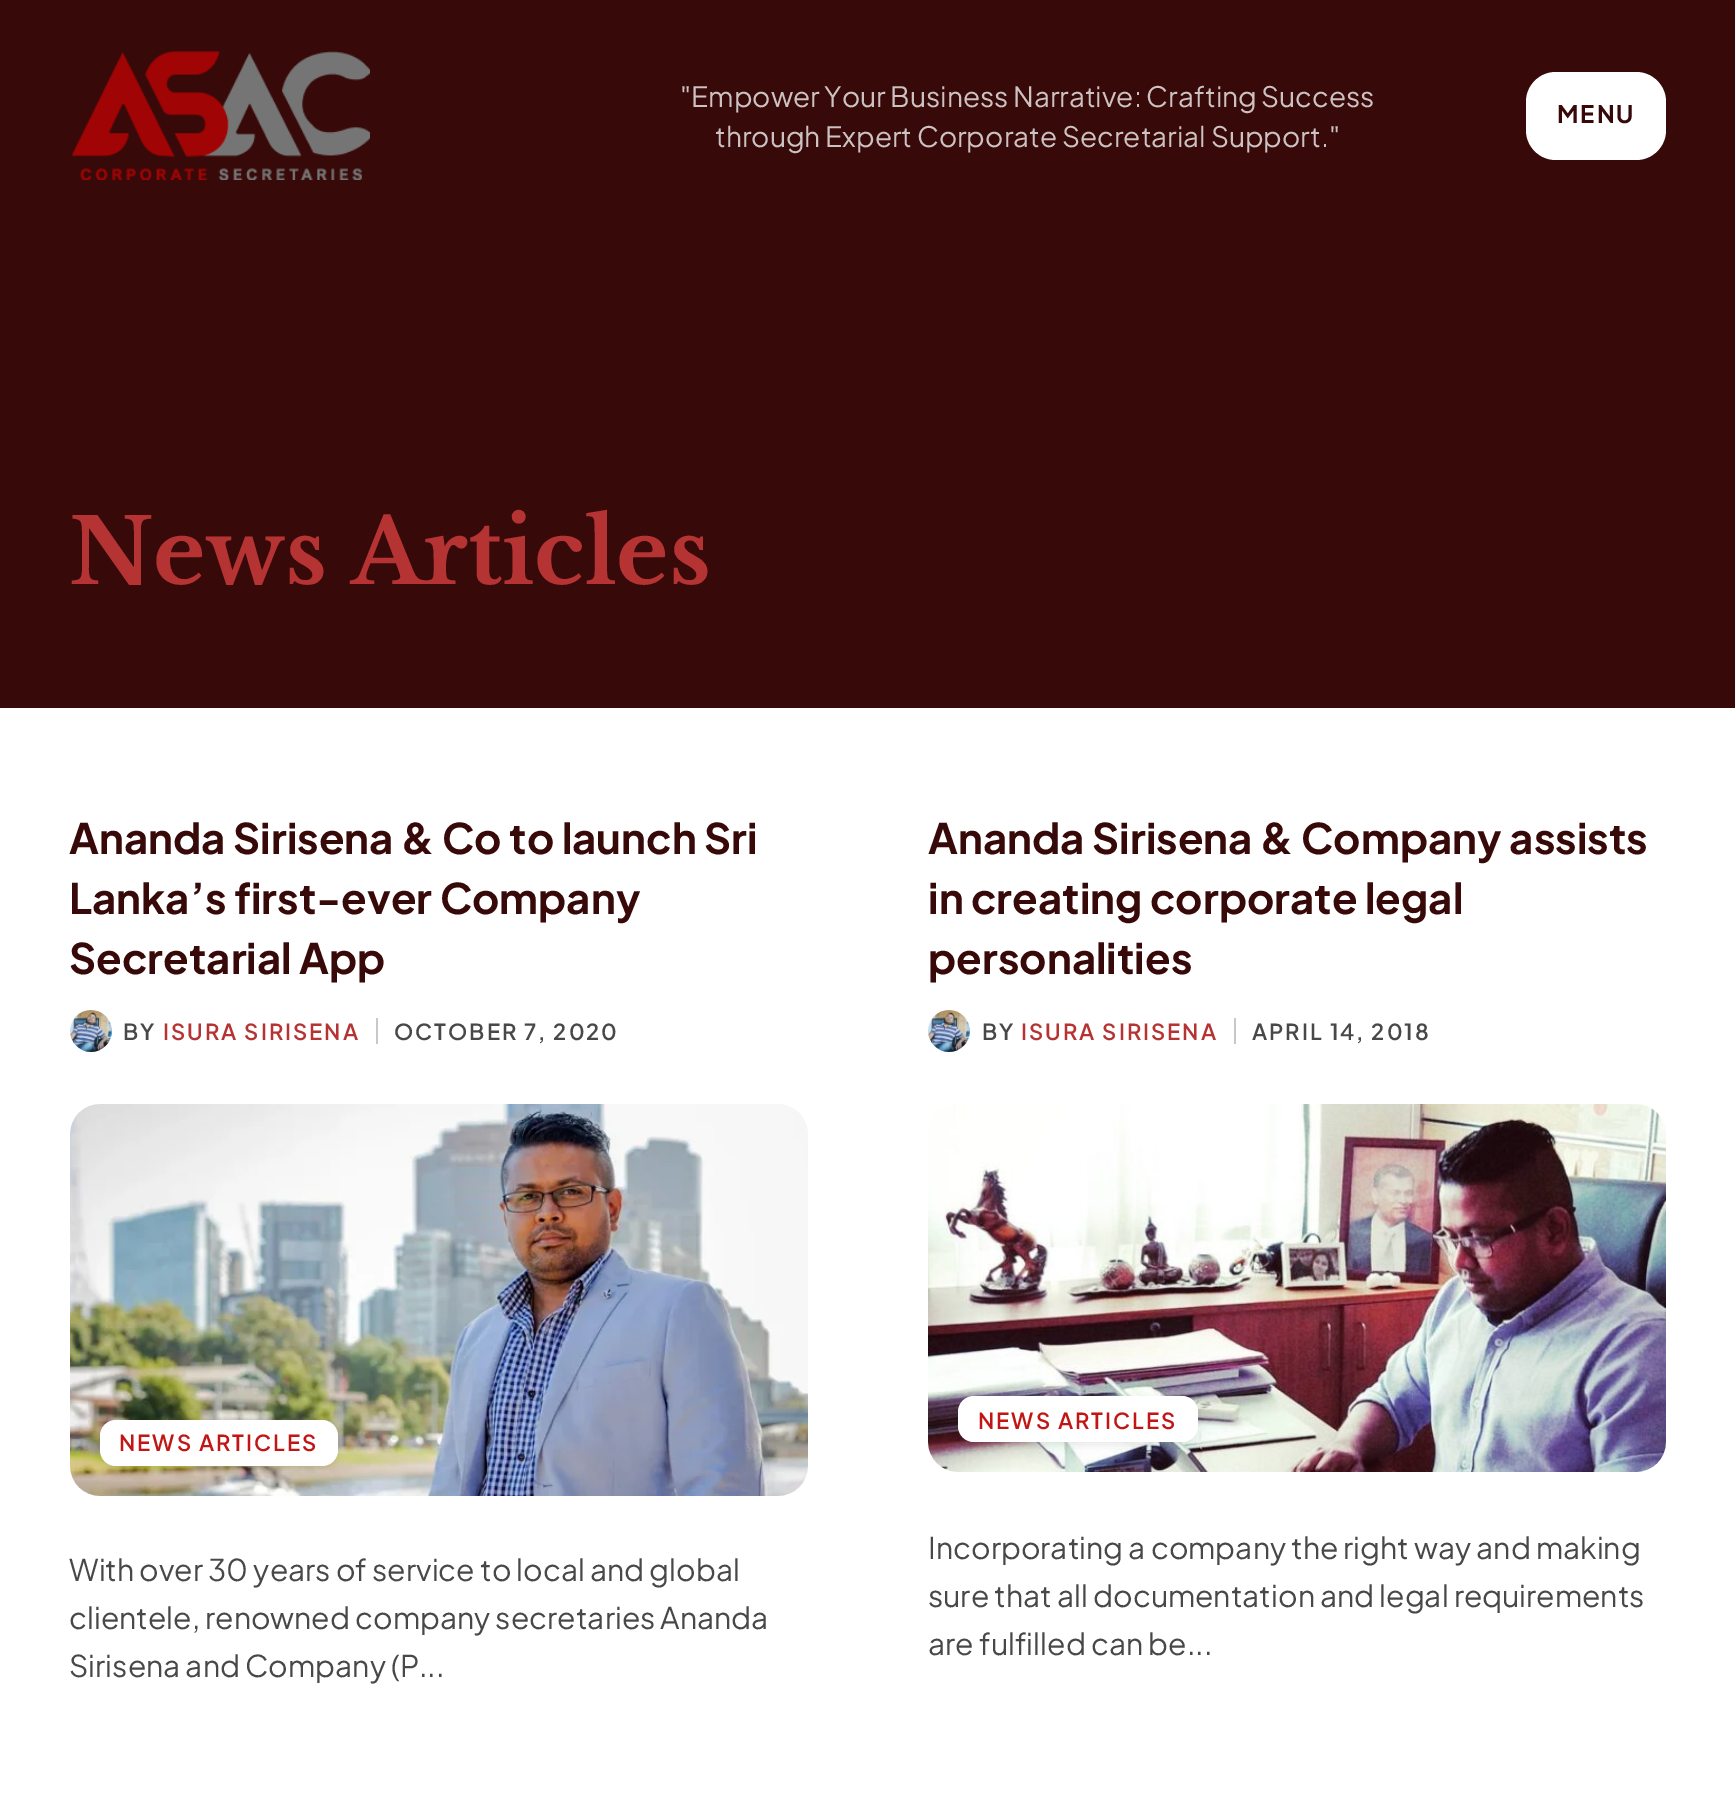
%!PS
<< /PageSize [1735 1806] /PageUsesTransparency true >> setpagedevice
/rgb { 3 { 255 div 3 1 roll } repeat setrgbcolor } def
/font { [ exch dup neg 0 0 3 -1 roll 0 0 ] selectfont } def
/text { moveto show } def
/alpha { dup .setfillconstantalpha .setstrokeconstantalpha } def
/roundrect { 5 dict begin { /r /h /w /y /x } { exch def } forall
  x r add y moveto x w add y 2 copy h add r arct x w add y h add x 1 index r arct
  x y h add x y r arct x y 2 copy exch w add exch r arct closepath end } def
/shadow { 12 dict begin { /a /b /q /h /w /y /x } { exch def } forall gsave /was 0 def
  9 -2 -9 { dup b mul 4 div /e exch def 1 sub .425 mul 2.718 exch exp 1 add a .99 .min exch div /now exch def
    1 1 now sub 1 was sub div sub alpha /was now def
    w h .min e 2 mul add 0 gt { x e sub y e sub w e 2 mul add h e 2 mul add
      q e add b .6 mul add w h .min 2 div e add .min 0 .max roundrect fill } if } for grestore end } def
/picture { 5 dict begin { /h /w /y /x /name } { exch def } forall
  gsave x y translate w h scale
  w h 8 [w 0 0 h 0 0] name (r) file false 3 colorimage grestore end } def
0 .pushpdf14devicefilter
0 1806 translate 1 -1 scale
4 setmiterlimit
255 255 255 rgb
0 0 1735 1806 rectfill
56 9 9 rgb
0 0 1735 708 rectfill
(img_01.rgb) 71 51 299 129 picture
255 255 255 rgb
1526 72 140 88 30 roundrect fill
(img_02.rgb) 70 1010 42 42 picture
200 200 200 rgb
376 1018 2 26 rectfill
(img_03.rgb) 70 1104 738 392 picture
0 0 0 rgb
100 1424 238 46 16 4 0.07 shadow
255 255 255 rgb
100 1420 238 46 16 roundrect fill
(img_04.rgb) 928 1010 42 42 picture
200 200 200 rgb
1234 1018 2 26 rectfill
(img_05.rgb) 928 1104 738 368 picture
0 0 0 rgb
958 1400 240 46 16 4 0.07 shadow
255 255 255 rgb
958 1396 240 46 16 roundrect fill
/PlusJakartaSans-Regular 28 font
205 194 194 rgb
("Empower Your Business Narrative: Crafting Success) 680 107 text
(through Expert Corporate Secretarial Support.") 715 147 text
/PlusJakartaSans-Bold 24 font
56 9 9 rgb
1557 123 moveto 2 0 (MENU) ashow
/LibreBaskerville-Bold 89.5 font
182 51 51 rgb
(News Articles) 69 584 text
/PlusJakartaSans-Bold 42 font
56 9 9 rgb
(Ananda Sirisena & Co to launch Sri) 69 854 text
(Lanka’s first-ever Company) 69 914 text
(Secretarial App) 69 974 text
/PlusJakartaSans-SemiBold 22 font
73 72 72 rgb
123 1040 moveto 2 0 (BY) ashow
182 51 51 rgb
163 1040 moveto 2 0 (ISURA SIRISENA) ashow
73 72 72 rgb
394 1040 moveto 2 0 (OCTOBER 7, 2020) ashow
194 22 22 rgb
119 1451 moveto 2 0 (NEWS ARTICLES) ashow
/PlusJakartaSans-Regular 30 font
73 72 72 rgb
(With over 30 years of service to local and global) 69 1581 text
(clientele, renowned company secretaries Ananda) 69 1629 text
(Sirisena and Company \(P...) 69 1677 text
/PlusJakartaSans-Bold 42 font
56 9 9 rgb
(Ananda Sirisena & Company assists) 928 854 text
(in creating corporate legal) 928 914 text
(personalities) 928 974 text
/PlusJakartaSans-SemiBold 22 font
73 72 72 rgb
982 1040 moveto 2 0 (BY) ashow
182 51 51 rgb
1021 1040 moveto 2 0 (ISURA SIRISENA) ashow
73 72 72 rgb
1252 1040 moveto 2 0 (APRIL 14, 2018) ashow
194 22 22 rgb
978 1429 moveto 2 0 (NEWS ARTICLES) ashow
/PlusJakartaSans-Regular 30 font
73 72 72 rgb
(Incorporating a company the right way and making) 928 1559 text
(sure that all documentation and legal requirements) 928 1607 text
(are fulfilled can be...) 928 1655 text
.poppdf14devicefilter showpage
